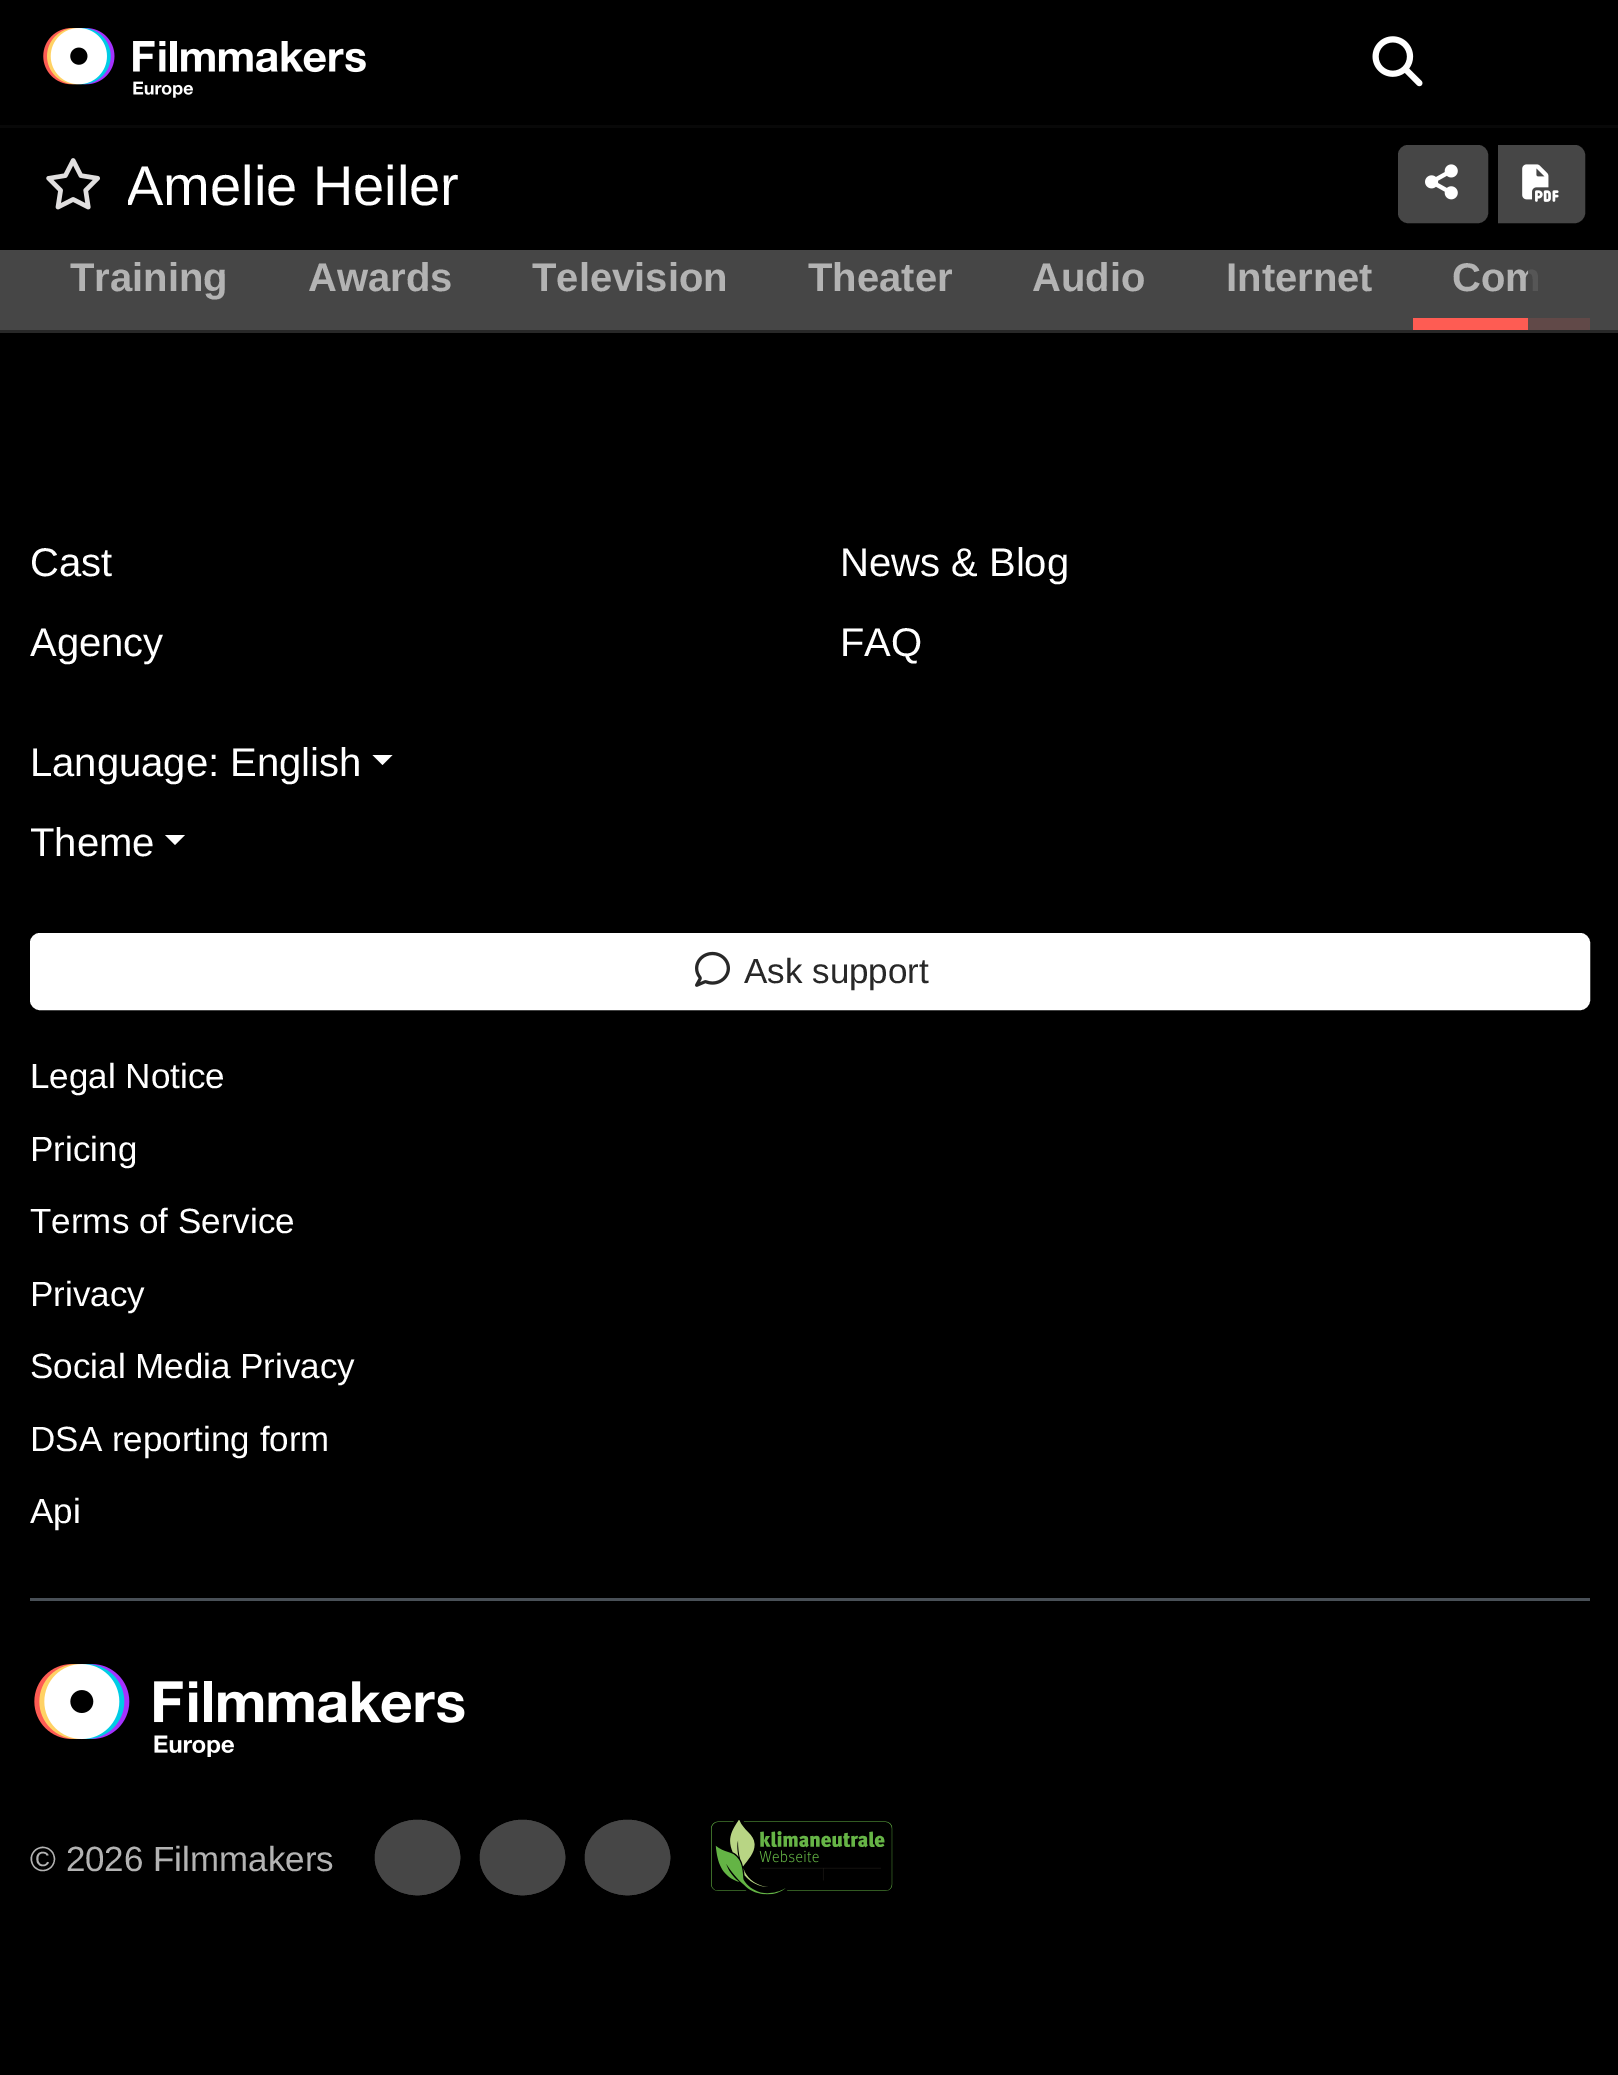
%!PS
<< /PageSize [1618 2075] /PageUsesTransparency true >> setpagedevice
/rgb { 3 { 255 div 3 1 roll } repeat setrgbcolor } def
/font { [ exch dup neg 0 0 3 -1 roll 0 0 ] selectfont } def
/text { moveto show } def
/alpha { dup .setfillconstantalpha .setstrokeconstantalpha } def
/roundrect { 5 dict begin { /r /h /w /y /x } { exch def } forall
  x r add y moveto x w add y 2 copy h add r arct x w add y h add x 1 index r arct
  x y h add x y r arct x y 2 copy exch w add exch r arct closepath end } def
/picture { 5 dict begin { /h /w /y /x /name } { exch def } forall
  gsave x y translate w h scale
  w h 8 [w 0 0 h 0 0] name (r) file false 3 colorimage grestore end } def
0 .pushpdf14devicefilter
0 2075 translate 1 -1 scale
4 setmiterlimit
0 0 0 rgb
0 0 1618 2075 rectfill
0.2 alpha
40 40 40 rgb
0 125 1618 3 rectfill
1 alpha
(img_01.rgb) 43 28 323 70 picture
(img_02.rgb) 1372 36 51 51 picture
(img_03.rgb) 46 158 54 52 picture
70 70 70 rgb
1399.5 146.5 87 75 8.5 roundrect gsave fill grestore
3 setlinewidth
stroke
(img_04.rgb) 1425 164 33 36 picture
1499.5 146.5 moveto 75.5 0 rlineto 4.5 0 8.5 4 8.5 8.5 rcurveto 0 58 rlineto 0 4.5 -4 8.5 -8.5 8.5 rcurveto -75.5 0 rlineto closepath gsave fill grestore
stroke
(img_05.rgb) 1522 164 37 38 picture
0 250 1618 80 rectfill
254 92 83 rgb
1413 318 177 12 rectfill
40 40 40 rgb
0 330 1618 3 rectfill
255 255 255 rgb
372.5 755 moveto 20 0 rlineto -10 10 rlineto closepath fill
165 835 moveto 20 0 rlineto -10 10 rlineto closepath fill
31.5 934.5 1557 74 8.5 roundrect gsave fill grestore
stroke
(img_06.rgb) 695 951 35 36 picture
73 80 87 rgb
30 1598 1560 3 rectfill
(img_07.rgb) 34 1664 431 93 picture
70 70 70 rgb
417.5 1820 moveto 23.5 0 42.5 17 42.5 37.5 rcurveto 0 20.5 -19 37.5 -42.5 37.5 rcurveto -23.5 0 -42.5 -17 -42.5 -37.5 rcurveto 0 -20.5 19 -37.5 42.5 -37.5 rcurveto closepath fill
2.5 setlinewidth
417.5 1821 moveto 23 0 41.5 16.5 41.5 36.5 rcurveto 0 20 -18.5 36.5 -41.5 36.5 rcurveto -23 0 -41.5 -16.5 -41.5 -36.5 rcurveto 0 -20 18.5 -36.5 41.5 -36.5 rcurveto closepath stroke
522.5 1820 moveto 23.5 0 42.5 17 42.5 37.5 rcurveto 0 20.5 -19 37.5 -42.5 37.5 rcurveto -23.5 0 -42.5 -17 -42.5 -37.5 rcurveto 0 -20.5 19 -37.5 42.5 -37.5 rcurveto closepath fill
522.5 1821 moveto 23 0 41.5 16.5 41.5 36.5 rcurveto 0 20 -18.5 36.5 -41.5 36.5 rcurveto -23 0 -41.5 -16.5 -41.5 -36.5 rcurveto 0 -20 18.5 -36.5 41.5 -36.5 rcurveto closepath stroke
627.5 1820 moveto 23.5 0 42.5 17 42.5 37.5 rcurveto 0 20.5 -19 37.5 -42.5 37.5 rcurveto -23.5 0 -42.5 -17 -42.5 -37.5 rcurveto 0 -20.5 19 -37.5 42.5 -37.5 rcurveto closepath fill
627.5 1821 moveto 23 0 41.5 16.5 41.5 36.5 rcurveto 0 20 -18.5 36.5 -41.5 36.5 rcurveto -23 0 -41.5 -16.5 -41.5 -36.5 rcurveto 0 -20 18.5 -36.5 41.5 -36.5 rcurveto closepath stroke
(img_08.rgb) 711 1820 182 75 picture
gsave
128 155 330 73 rectclip
/LiberationSans-Regular 56 font
255 255 255 rgb
(Amelie Heiler) 126 205 text
grestore
/LiberationSans-Bold 40 font
179 179 179 rgb
(Training) 70 291 text
(Awards) 308 291 text
(Television) 532 291 text
(Theater) 808 291 text
(Audio) 1032 291 text
(Internet) 1226 291 text
(Com) 1452 291 text
0.85 alpha
70 70 70 rgb
1528 269 62 61 rectfill
/LiberationSans-Regular 40 font
1 alpha
255 255 255 rgb
(Cast) 30 576 text
(Agency) 30 656 text
(News & Blog) 840 576 text
(FAQ) 840 656 text
(Language: English) 30 776 text
(Theme) 30 856 text
/LiberationSans-Regular 35 font
40 40 40 rgb
(Ask support) 744 983 text
255 255 255 rgb
(Legal Notice) 30 1088 text
(Pricing) 30 1161 text
(Terms of Service) 30 1233 text
(Privacy) 30 1306 text
(Social Media Privacy) 30 1378 text
(DSA reporting form) 30 1451 text
(Api) 30 1523 text
179 179 179 rgb
(© 2026 Filmmakers) 30 1871 text
.poppdf14devicefilter showpage
